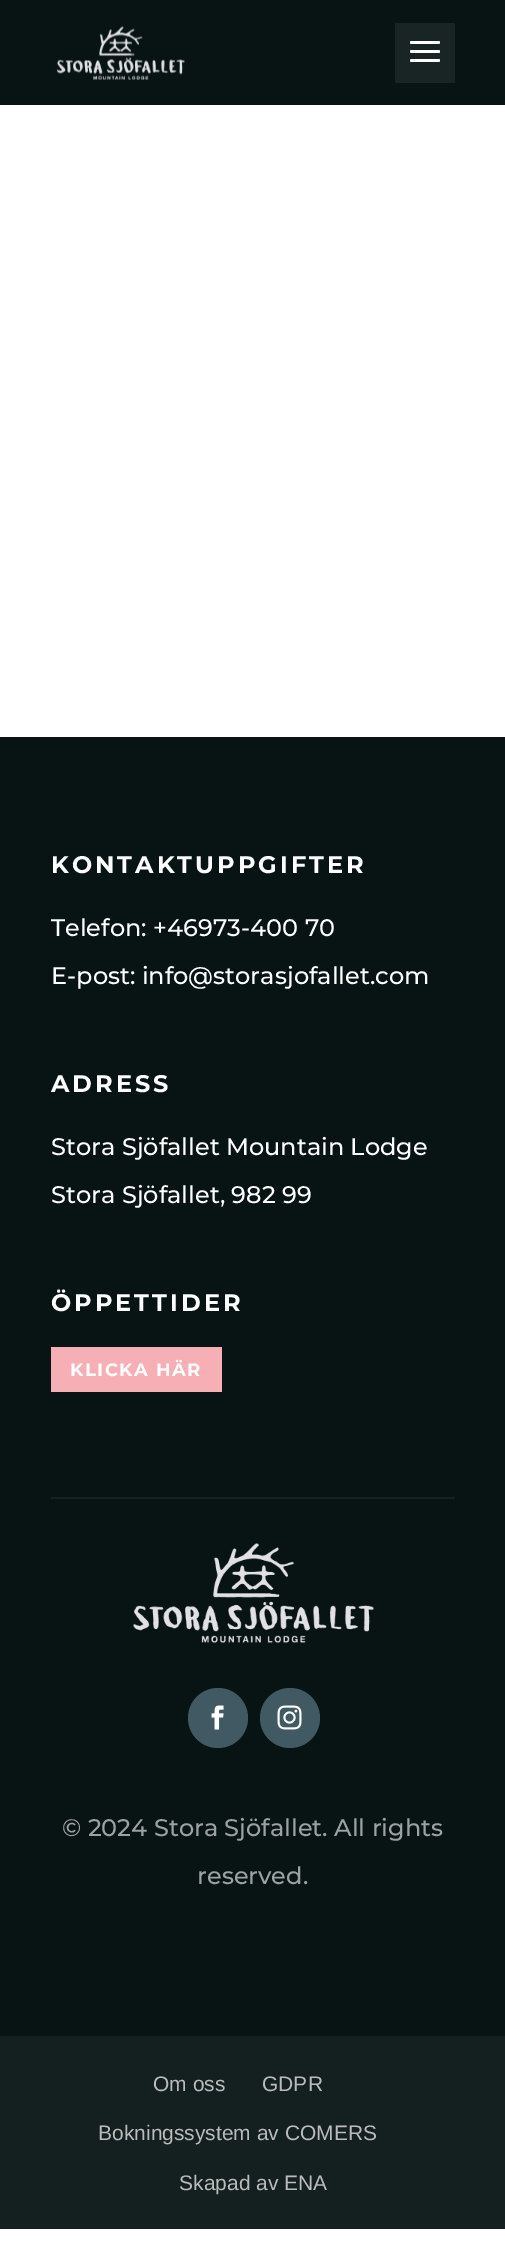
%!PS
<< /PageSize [505 2248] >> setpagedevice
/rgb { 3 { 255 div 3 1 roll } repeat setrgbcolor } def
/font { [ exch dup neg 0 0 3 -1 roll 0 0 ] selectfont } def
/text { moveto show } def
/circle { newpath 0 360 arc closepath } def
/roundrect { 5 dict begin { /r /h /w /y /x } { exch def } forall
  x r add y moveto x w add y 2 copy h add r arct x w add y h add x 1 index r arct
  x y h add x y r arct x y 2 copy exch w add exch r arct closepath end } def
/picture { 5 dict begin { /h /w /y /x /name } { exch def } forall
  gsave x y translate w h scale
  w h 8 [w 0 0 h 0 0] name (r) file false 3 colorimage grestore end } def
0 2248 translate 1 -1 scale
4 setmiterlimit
255 255 255 rgb
0 0 505 2248 rectfill
8 19 20 rgb
0 0 505 105 rectfill
(img_01.rgb) 57 26 128 54 picture
25 36 36 rgb
395 23 60 60 rectfill
255 255 255 rgb
410 50 30 3 1.5 roundrect fill
410 41 30 3 1.5 roundrect fill
410 59 30 3 1.5 roundrect fill
8 19 20 rgb
0 737 505 1299 rectfill
247 175 182 rgb
51 1347 171 45 rectfill
22 33 34 rgb
51 1497 404 2 rectfill
(img_02.rgb) 133 1543 241 100 picture
65 89 98 rgb
218 1718 30 circle fill
(img_03.rgb) 211 1705 13 25 picture
290 1718 30 circle fill
(img_04.rgb) 277 1705 25 25 picture
20 31 32 rgb
0 2036 505 193 rectfill
/Montserrat-Bold 24 font
255 255 255 rgb
51 873 moveto 3 0 (KONTAKTUPPGIFTER) ashow
/Montserrat-Medium 24 font
(Telefon: +46973-400 70) 51 936 text
(E-post: info@storasjofallet.com) 51 984 text
/Montserrat-Bold 24 font
51 1092 moveto 3 0 (ADRESS) ashow
/Montserrat-Medium 24 font
(Stora Sjöfallet Mountain Lodge) 51 1155 text
(Stora Sjöfallet, 982 99) 51 1203 text
/Montserrat-Bold 24 font
51 1311 moveto 3 0 (ÖPPETTIDER) ashow
/Montserrat-Bold 18 font
70 1376 moveto 1.5 0 (KLICKA HÄR) ashow
/Montserrat-Medium 24 font
156 161 161 rgb
(© 2024 Stora Sjöfallet. All rights) 62 1836 text
(reserved.) 197 1884 text
/LiberationSans-Regular 21 font
187 187 187 rgb
(Om oss) 153 2091 text
(GDPR) 262 2091 text
(Bokningssystem av COMERS) 98 2140 text
(Skapad av ENA) 179 2190 text
showpage
